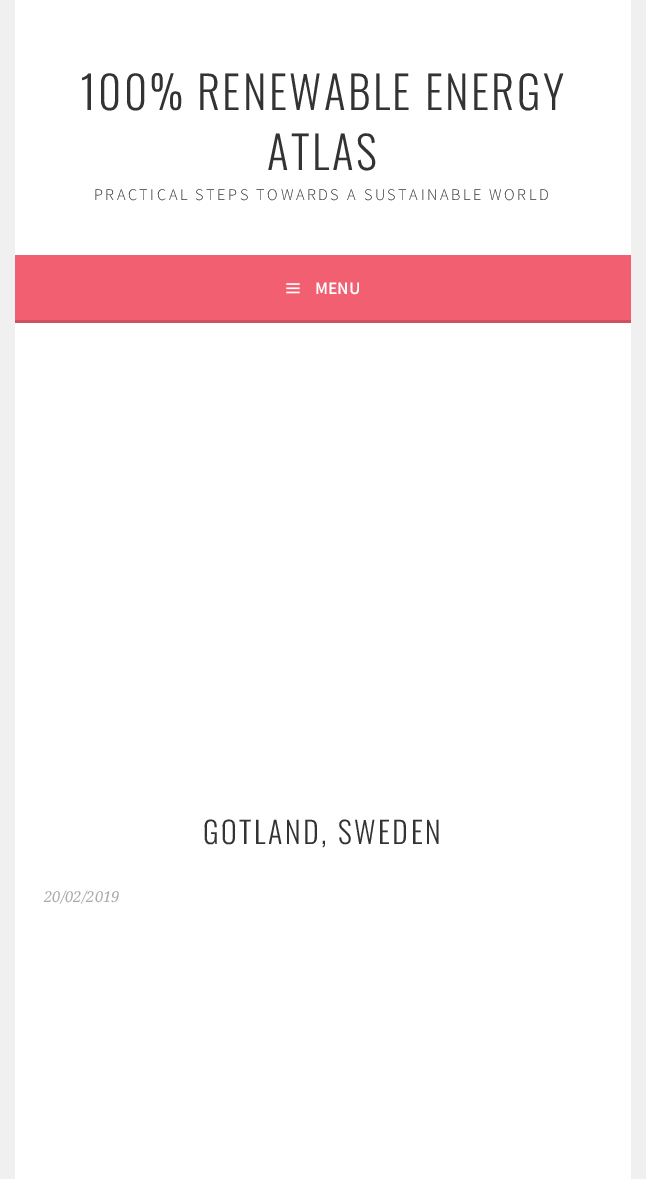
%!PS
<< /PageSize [646 1179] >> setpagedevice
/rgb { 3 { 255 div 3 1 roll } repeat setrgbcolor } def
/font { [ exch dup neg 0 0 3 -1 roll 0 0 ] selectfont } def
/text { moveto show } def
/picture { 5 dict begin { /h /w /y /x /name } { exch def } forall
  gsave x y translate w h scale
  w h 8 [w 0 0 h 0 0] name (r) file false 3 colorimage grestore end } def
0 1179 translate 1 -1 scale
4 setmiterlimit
240 240 240 rgb
0 0 646 1179 rectfill
255 255 255 rgb
15 0 616 255 rectfill
242 95 112 rgb
15 255 616 65 rectfill
206 81 95 rgb
15 320 616 3 rectfill
(img_01.rgb) 286 283 14 11 picture
255 255 255 rgb
15 323 616 856 rectfill
/Oswald-Light 45 font
51 51 51 rgb
80 110 moveto 2.5 0 (100% RENEWABLE ENERGY) ashow
267 170 moveto 2.5 0 (ATLAS) ashow
/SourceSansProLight-Light 16.25 font
94 200 moveto 2.5 0 (PRACTICAL STEPS TOWARDS A SUSTAINABLE WORLD) ashow
/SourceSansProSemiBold-SemiBold 17.5 font
255 255 255 rgb
(MENU) 315 294 text
/Oswald-Light 30 font
51 51 51 rgb
203 844 moveto 2.5 0 (GOTLAND, SWEDEN) ashow
/DroidSerif-Italic 15 font
170 170 170 rgb
(20/02/2019) 44 902 text
showpage
